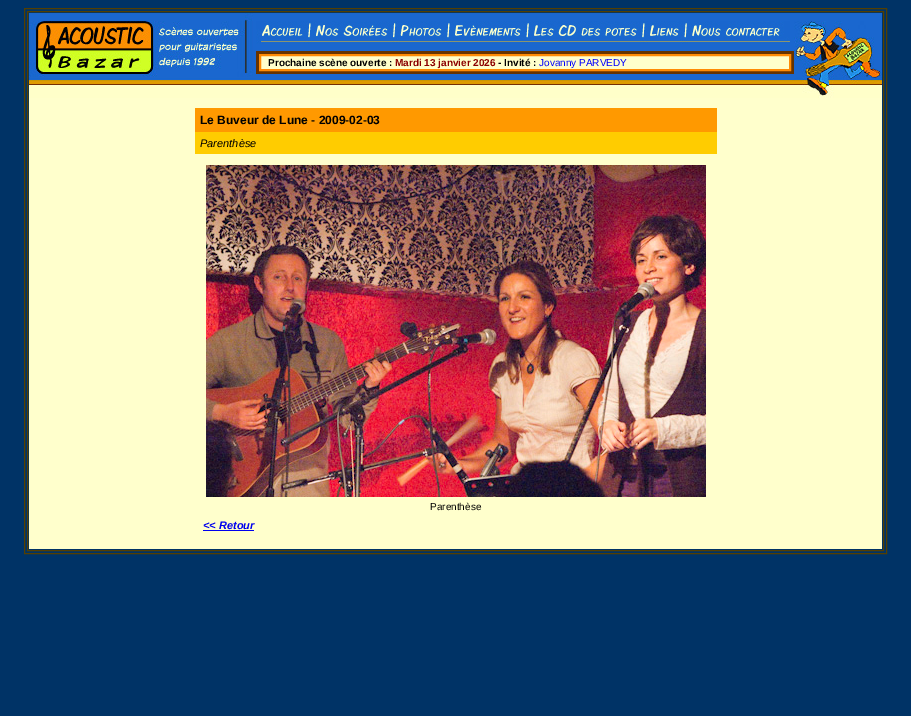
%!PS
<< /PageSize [911 716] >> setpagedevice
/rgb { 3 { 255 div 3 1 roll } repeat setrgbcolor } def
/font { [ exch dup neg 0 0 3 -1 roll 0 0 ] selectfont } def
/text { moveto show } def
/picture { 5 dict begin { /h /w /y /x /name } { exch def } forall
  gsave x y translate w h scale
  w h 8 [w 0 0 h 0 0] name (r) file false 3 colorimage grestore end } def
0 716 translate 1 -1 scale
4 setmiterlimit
0 51 102 rgb
0 0 911 716 rectfill
85 63 0 rgb
24.5 8.5 862 545 rectstroke
27.5 11.5 856 539 rectstroke
(img_01.rgb) 29 13 227 85 picture
(img_02.rgb) 29 13 224 64 picture
26 103 207 rgb
256 13 538 67 rectfill
(img_03.rgb) 256 21 534 23 picture
102 51 0 rgb
256 51 538 23 rectfill
255 255 204 rgb
261 56 528 13 rectfill
255 139 5 rgb
259.5 54.5 531 16 rectstroke
260.5 55.5 529 14 rectstroke
(img_04.rgb) 256 80 538 18 picture
(img_05.rgb) 794 13 88 8 picture
(img_06.rgb) 794 21 88 77 picture
255 255 204 rgb
29 98 853 451 rectfill
255 153 0 rgb
195 108 522 24 rectfill
255 204 0 rgb
195 132 522 22 rectfill
(img_07.rgb) 206 165 500 332 picture
0 0 238 rgb
203 530 51 1 rectfill
/LiberationSans-Bold 10 font
0 0 0 rgb
(Prochaine scène ouverte :) 268 66 text
139 0 0 rgb
(Mardi 13 janvier 2026) 395 66 text
0 0 0 rgb
(- Invité :) 498 66 text
/LiberationSans-Regular 10 font
0 0 255 rgb
(Jovanny PARVEDY) 539 66 text
/LiberationSans-Bold 12 font
0 0 0 rgb
(Le Buveur de Lune - 2009-02-03) 200 124 text
/LiberationSans-Italic 11 font
(Parenthèse) 200 147 text
/LiberationSans-Regular 10 font
(Parenthèse) 430 510 text
/LiberationSans-BoldItalic 11 font
0 0 238 rgb
(<< Retour) 203 529 text
showpage
